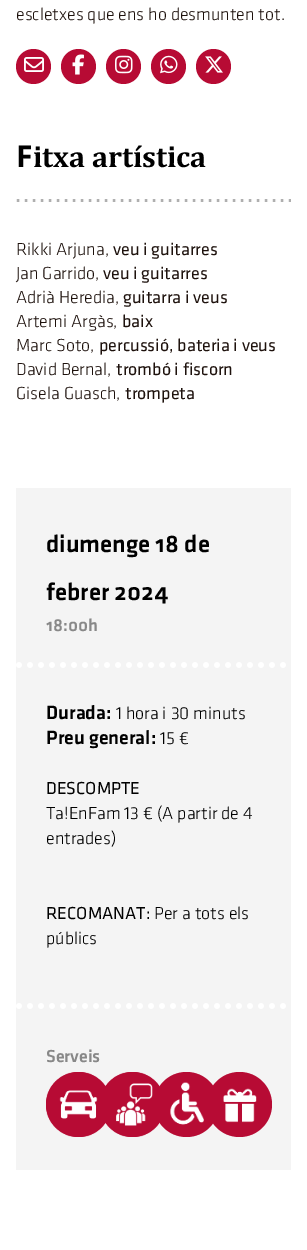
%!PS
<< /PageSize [307 1250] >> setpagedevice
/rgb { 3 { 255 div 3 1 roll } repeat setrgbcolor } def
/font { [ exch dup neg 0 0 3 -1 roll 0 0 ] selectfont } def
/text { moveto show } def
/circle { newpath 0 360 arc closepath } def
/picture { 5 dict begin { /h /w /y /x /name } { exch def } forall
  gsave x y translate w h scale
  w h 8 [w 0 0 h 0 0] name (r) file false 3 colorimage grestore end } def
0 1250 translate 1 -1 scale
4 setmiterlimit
255 255 255 rgb
0 0 307 1250 rectfill
183 11 52 rgb
33.5 66.5 17.5 circle fill
(img_01.rgb) 24 57 20 15 picture
78.5 66.5 17.5 circle fill
(img_02.rgb) 72 54 12 21 picture
123.5 66.5 17.5 circle fill
(img_03.rgb) 115 55 18 19 picture
168.5 66.5 17.5 circle fill
(img_04.rgb) 160 55 18 19 picture
213.5 66.5 17.5 circle fill
(img_05.rgb) 205 56 18 17 picture
(img_06.rgb) 16 199 275 3 picture
244 244 244 rgb
16 488 275 682 rectfill
(img_07.rgb) 16 662 270 6 picture
(img_07.rgb) 16 1003 270 6 picture
(img_08.rgb) 46 1072 60 65 picture
183 11 52 rgb
186.5 1104.5 32.5 circle fill
(img_09.rgb) 105 1072 55 65 picture
(img_10.rgb) 170 1082 34 43 picture
239.5 1104.5 32.5 circle fill
(img_11.rgb) 223 1088 34 35 picture
/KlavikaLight-Light 18 font
30 18 13 rgb
(escletxes que ens ho desmunten tot.) 16 20 text
/NotoSans-Bold 30 font
0 0 0 rgb
(F) 16 167 text
/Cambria-Bold 30 font
(itxa artística) 33 167 text
/KlavikaLight-Light 18 font
30 18 13 rgb
(Rikki Arjuna,) 16 255 text
/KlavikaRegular-Regular 18 font
(veu i guitarres) 113 255 text
/KlavikaLight-Light 18 font
(Jan Garrido,) 16 279 text
/KlavikaRegular-Regular 18 font
(veu i guitarres) 103 279 text
/KlavikaLight-Light 18 font
(Adrià Heredia,) 16 303 text
/KlavikaRegular-Regular 18 font
(guitarra i veus) 123 303 text
/KlavikaLight-Light 18 font
(Artemi Argàs,) 16 327 text
/KlavikaRegular-Regular 18 font
(baix) 122 327 text
/KlavikaLight-Light 18 font
(Marc Soto,) 16 351 text
/KlavikaRegular-Regular 18 font
(percussió, bateria i veus) 99 351 text
/KlavikaLight-Light 18 font
(David Bernal,) 16 375 text
/KlavikaRegular-Regular 18 font
(trombó i fiscorn) 116 375 text
/KlavikaLight-Light 18 font
(Gisela Guasch,) 16 399 text
/KlavikaRegular-Regular 18 font
(trompeta) 125 399 text
/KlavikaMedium-Medium 25 font
0 0 0 rgb
(diumenge 18 de) 46 552 text
(febrer 2024) 46 600 text
/KlavikaMedium-Medium 18 font
136 136 136 rgb
(18:00h) 46 631 text
/KlavikaMedium-Medium 20 font
0 0 0 rgb
(Durada:) 46 719 text
/KlavikaLight-Light 18 font
(1 hora i 30 minuts) 116 719 text
/KlavikaMedium-Medium 20 font
(Preu general:) 46 744 text
/KlavikaLight-Light 18 font
(15 €) 160 744 text
/KlavikaRegular-Regular 18 font
(DESCOMPTE) 46 794 text
/KlavikaLight-Light 18 font
(Ta!EnFam 13 € \(A partir de 4) 46 819 text
(entrades\)) 46 844 text
/KlavikaRegular-Regular 18 font
(RECOMANAT:) 46 919 text
/KlavikaLight-Light 18 font
(Per a tots els) 154 919 text
(públics) 46 944 text
/KlavikaMedium-Medium 18 font
136 136 136 rgb
(Serveis) 46 1062 text
showpage
